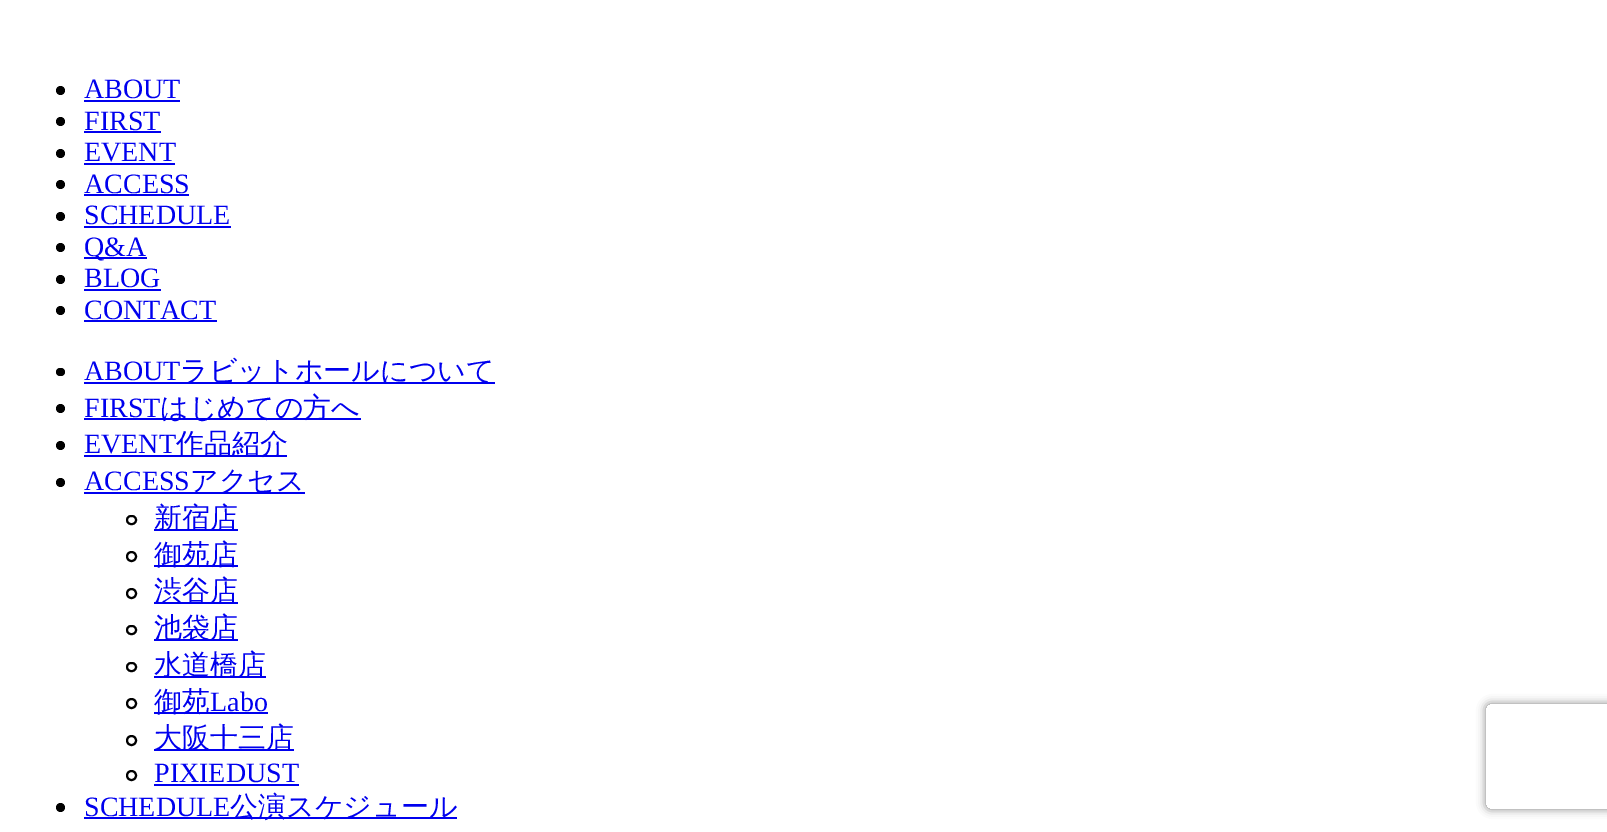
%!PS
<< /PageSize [1607 832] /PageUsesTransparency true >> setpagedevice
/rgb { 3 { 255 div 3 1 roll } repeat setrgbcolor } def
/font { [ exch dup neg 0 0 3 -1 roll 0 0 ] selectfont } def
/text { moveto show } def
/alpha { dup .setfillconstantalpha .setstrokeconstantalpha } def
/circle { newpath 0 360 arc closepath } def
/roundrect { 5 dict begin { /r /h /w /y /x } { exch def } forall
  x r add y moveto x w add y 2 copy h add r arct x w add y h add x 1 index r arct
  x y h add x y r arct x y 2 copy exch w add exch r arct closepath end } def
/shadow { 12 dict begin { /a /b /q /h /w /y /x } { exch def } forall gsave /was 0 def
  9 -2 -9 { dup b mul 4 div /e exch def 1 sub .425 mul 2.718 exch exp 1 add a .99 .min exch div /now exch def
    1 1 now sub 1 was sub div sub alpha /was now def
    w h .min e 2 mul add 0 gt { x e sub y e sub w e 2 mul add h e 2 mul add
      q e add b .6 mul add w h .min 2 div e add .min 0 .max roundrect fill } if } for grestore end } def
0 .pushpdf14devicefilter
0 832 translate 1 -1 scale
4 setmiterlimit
255 255 255 rgb
0 0 1607 832 rectfill
0 0 0 rgb
60.5 90.5 4.5 circle fill
0 0 238 rgb
84 100 96 2 rectfill
0 0 0 rgb
60.5 121.5 4.5 circle fill
0 0 238 rgb
84 131 77 2 rectfill
0 0 0 rgb
60.5 153.5 4.5 circle fill
0 0 238 rgb
84 163 91 2 rectfill
0 0 0 rgb
60.5 184.5 4.5 circle fill
0 0 238 rgb
84 194 105 2 rectfill
0 0 0 rgb
60.5 216.5 4.5 circle fill
0 0 238 rgb
84 226 147 2 rectfill
0 0 0 rgb
60.5 247.5 4.5 circle fill
0 0 238 rgb
84 257 63 2 rectfill
0 0 0 rgb
60.5 279.5 4.5 circle fill
0 0 238 rgb
84 289 77 2 rectfill
0 0 0 rgb
60.5 310.5 4.5 circle fill
0 0 238 rgb
84 320 133 2 rectfill
0 0 0 rgb
56 368 9 8 4 roundrect fill
0 0 238 rgb
84 382 411 2 rectfill
0 0 0 rgb
60.5 408.5 4.5 circle fill
0 0 238 rgb
84 418 277 2 rectfill
0 0 0 rgb
60.5 445.5 4.5 circle fill
0 0 238 rgb
84 455 203 2 rectfill
0 0 0 rgb
60.5 482.5 4.5 circle fill
0 0 238 rgb
84 492 221 2 rectfill
0 0 0 rgb
2 setlinewidth
127 516 9 8 4 roundrect stroke
0 0 238 rgb
154 529 84 2 rectfill
0 0 0 rgb
131.5 556.5 4.5 circle stroke
0 0 238 rgb
154 565 84 2 rectfill
0 0 0 rgb
131.5 593.5 4.5 circle stroke
0 0 238 rgb
154 602 84 2 rectfill
0 0 0 rgb
127 626 9 8 4 roundrect stroke
0 0 238 rgb
154 639 84 2 rectfill
0 0 0 rgb
127 663 9 8 4 roundrect stroke
0 0 238 rgb
154 676 112 2 rectfill
0 0 0 rgb
131.5 703.5 4.5 circle stroke
0 0 238 rgb
154 712 114 2 rectfill
0 0 0 rgb
131.5 740.5 4.5 circle stroke
0 0 238 rgb
154 749 140 2 rectfill
0 0 0 rgb
131.5 775.5 4.5 circle stroke
0 0 238 rgb
154 784 145 2 rectfill
0 0 0 rgb
60.5 807.5 4.5 circle fill
0 0 238 rgb
84 817 373 2 rectfill
gsave
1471 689 moveto 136 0 rlineto 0 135 rlineto -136 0 rlineto closepath 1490 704 moveto 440 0 rlineto 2 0 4 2 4 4 rcurveto 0 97 rlineto 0 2 -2 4 -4 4 rcurveto -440 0 rlineto -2 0 -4 -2 -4 -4 rcurveto 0 -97 rlineto 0 -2 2 -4 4 -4 rcurveto closepath eoclip newpath
128 128 128 rgb
1486 704 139 105 4 4.5 1 shadow
grestore
/LiberationSerif-Regular 28 font
(ABOUT) 84 98 text
(FIRST) 84 130 text
(EVENT) 84 161 text
(ACCESS) 84 193 text
(SCHEDULE) 84 224 text
(Q&A) 84 256 text
(BLOG) 84 287 text
(CONTACT) 84 319 text
(ABOUT) 84 380 text
/WenQuanYiZenHei-Medium 28 font
(ラビットホールについて) 180 380 text
/LiberationSerif-Regular 28 font
(FIRST) 84 417 text
/WenQuanYiZenHei-Medium 28 font
(はじめての方へ) 160 417 text
/LiberationSerif-Regular 28 font
(EVENT) 84 453 text
/WenQuanYiZenHei-Medium 28 font
(作品紹介) 176 453 text
/LiberationSerif-Regular 28 font
(ACCESS) 84 490 text
/WenQuanYiZenHei-Medium 28 font
(アクセス) 190 490 text
(新宿店) 154 527 text
(御苑店) 154 564 text
(渋谷店) 154 600 text
(池袋店) 154 637 text
(水道橋店) 154 674 text
(御苑) 154 711 text
/LiberationSerif-Regular 28 font
(Labo) 210 711 text
/WenQuanYiZenHei-Medium 28 font
(大阪十三店) 154 747 text
/LiberationSerif-Regular 28 font
(PIXIEDUST) 154 782 text
(SCHEDULE) 84 816 text
/WenQuanYiZenHei-Medium 28 font
(公演スケジュール) 230 816 text
.poppdf14devicefilter showpage
